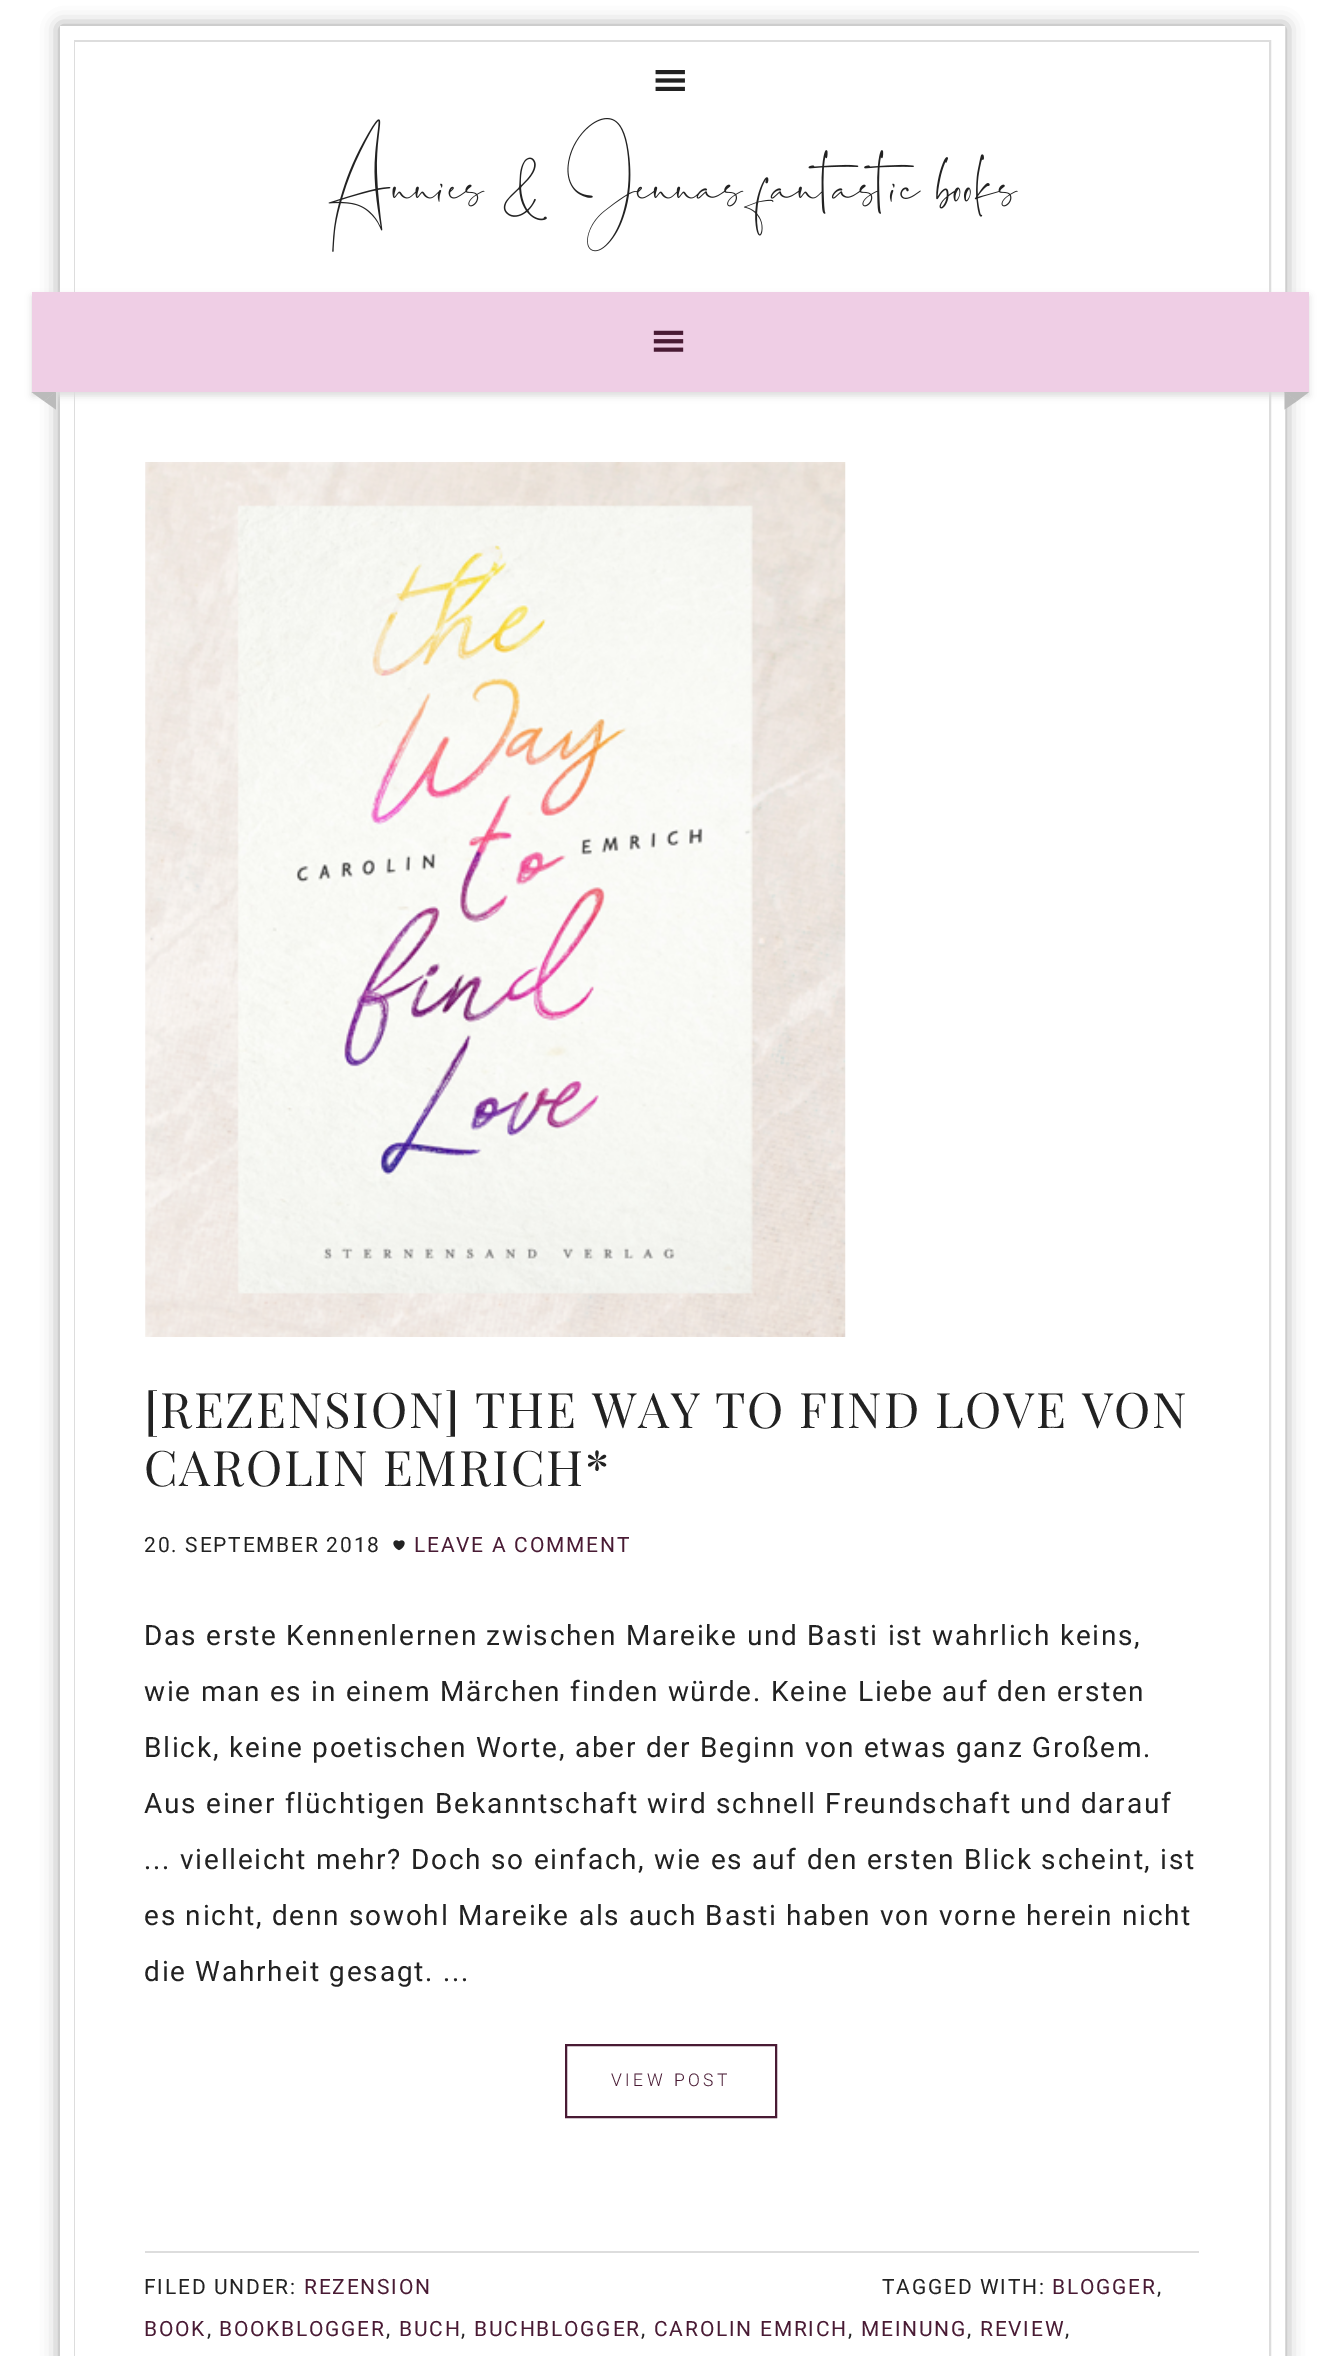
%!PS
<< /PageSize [1342 2356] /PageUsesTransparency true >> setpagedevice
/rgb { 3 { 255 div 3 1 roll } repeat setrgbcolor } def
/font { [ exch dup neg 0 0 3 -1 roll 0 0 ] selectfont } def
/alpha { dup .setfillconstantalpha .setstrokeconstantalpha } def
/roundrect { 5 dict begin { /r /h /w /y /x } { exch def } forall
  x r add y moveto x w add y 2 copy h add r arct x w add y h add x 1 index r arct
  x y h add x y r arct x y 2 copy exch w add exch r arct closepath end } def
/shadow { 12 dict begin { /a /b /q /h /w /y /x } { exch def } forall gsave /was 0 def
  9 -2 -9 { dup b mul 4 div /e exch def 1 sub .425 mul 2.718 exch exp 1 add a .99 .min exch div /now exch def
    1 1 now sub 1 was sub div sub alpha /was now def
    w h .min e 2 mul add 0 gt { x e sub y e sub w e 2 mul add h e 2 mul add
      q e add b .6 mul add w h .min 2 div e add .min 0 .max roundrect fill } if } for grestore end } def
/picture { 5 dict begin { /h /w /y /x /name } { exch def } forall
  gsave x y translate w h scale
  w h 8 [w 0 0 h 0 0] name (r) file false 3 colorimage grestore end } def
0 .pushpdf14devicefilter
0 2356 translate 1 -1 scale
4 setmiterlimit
255 255 255 rgb
0 0 1342 2356 rectfill
153 153 153 rgb
60 26 1225 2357 0 9 1 shadow
255 255 255 rgb
14 setlinewidth
67 33 1211 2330 rectstroke
221 221 221 rgb
2 setlinewidth
75 41 1195 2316 rectstroke
255 255 255 rgb
75 42 1194 250 rectfill
(img_01.rgb) 655 70 30 21 picture
(img_02.rgb) 328 118 690 134 picture
75 392 1194 1964 rectfill
221 221 221 rgb
32 296 1277 100 0 3.5 1 shadow
239 206 229 rgb
32 292 1277 100 rectfill
(img_03.rgb) 653 330 31 22 picture
187 187 187 rgb
31.5 392 moveto 24.5 0 rlineto -12 9 rlineto closepath fill
56 392 moveto 0 17.5 rlineto -12 -8.5 rlineto closepath fill
1284.5 392 moveto 24.5 0 rlineto -12 9 rlineto closepath fill
1284.5 409.5 moveto 0 -17.5 rlineto 12.5 9 rlineto closepath fill
(img_04.rgb) 145 462 701 875 picture
(img_05.rgb) 393 1540 12 11 picture
73 27 52 rgb
566 2045 210 72 rectstroke
221 221 221 rgb
145 2251 1054 2 rectfill
/PlayfairDisplay-Regular 49 font
34 34 34 rgb
144 1428 moveto 1.75 0 ([REZENSION] THE WAY TO FIND LOVE VON) ashow
144 1486 moveto 1.75 0 (CAROLIN EMRICH*) ashow
/Roboto-Regular 21 font
144 1552 moveto 1.75 0 (20. SEPTEMBER 2018) ashow
73 27 52 rgb
414 1552 moveto 1.75 0 (LEAVE A COMMENT) ashow
/Roboto-Regular 28 font
34 34 34 rgb
144 1645 moveto 1.75 0 (Das erste Kennenlernen zwischen Mareike und Basti ist wahrlich keins,) ashow
144 1701 moveto 1.75 0 (wie man es in einem Märchen finden würde. Keine Liebe auf den ersten) ashow
144 1757 moveto 1.75 0 (Blick, keine poetischen Worte, aber der Beginn von etwas ganz Großem.) ashow
144 1813 moveto 1.75 0 (Aus einer flüchtigen Bekanntschaft wird schnell Freundschaft und darauf) ashow
144 1869 moveto 1.75 0 (... vielleicht mehr? Doch so einfach, wie es auf den ersten Blick scheint, ist) ashow
144 1925 moveto 1.75 0 (es nicht, denn sowohl Mareike als auch Basti haben von vorne herein nicht) ashow
144 1981 moveto 1.75 0 (die Wahrheit gesagt. ...) ashow
/Roboto-Light 17.5 font
73 27 52 rgb
611 2086 moveto 3.5 0 (VIEW POST) ashow
/Roboto-Regular 21 font
34 34 34 rgb
144 2294 moveto 1.75 0 (FILED UNDER:) ashow
73 27 52 rgb
304 2294 moveto 1.75 0 (REZENSION) ashow
34 34 34 rgb
882 2294 moveto 1.75 0 (TAGGED WITH:) ashow
73 27 52 rgb
1052 2294 moveto 1.75 0 (BLOGGER) ashow
34 34 34 rgb
1157 2294 moveto 1.75 0 (,) ashow
73 27 52 rgb
144 2336 moveto 1.75 0 (BOOK) ashow
34 34 34 rgb
207 2336 moveto 1.75 0 (,) ashow
73 27 52 rgb
219 2336 moveto 1.75 0 (BOOKBLOGGER) ashow
34 34 34 rgb
386 2336 moveto 1.75 0 (,) ashow
73 27 52 rgb
399 2336 moveto 1.75 0 (BUCH) ashow
34 34 34 rgb
461 2336 moveto 1.75 0 (,) ashow
73 27 52 rgb
474 2336 moveto 1.75 0 (BUCHBLOGGER) ashow
34 34 34 rgb
641 2336 moveto 1.75 0 (,) ashow
73 27 52 rgb
654 2336 moveto 1.75 0 (CAROLIN EMRICH) ashow
34 34 34 rgb
848 2336 moveto 1.75 0 (,) ashow
73 27 52 rgb
861 2336 moveto 1.75 0 (MEINUNG) ashow
34 34 34 rgb
967 2336 moveto 1.75 0 (,) ashow
73 27 52 rgb
980 2336 moveto 1.75 0 (REVIEW) ashow
34 34 34 rgb
1065 2336 moveto 1.75 0 (,) ashow
.poppdf14devicefilter showpage
